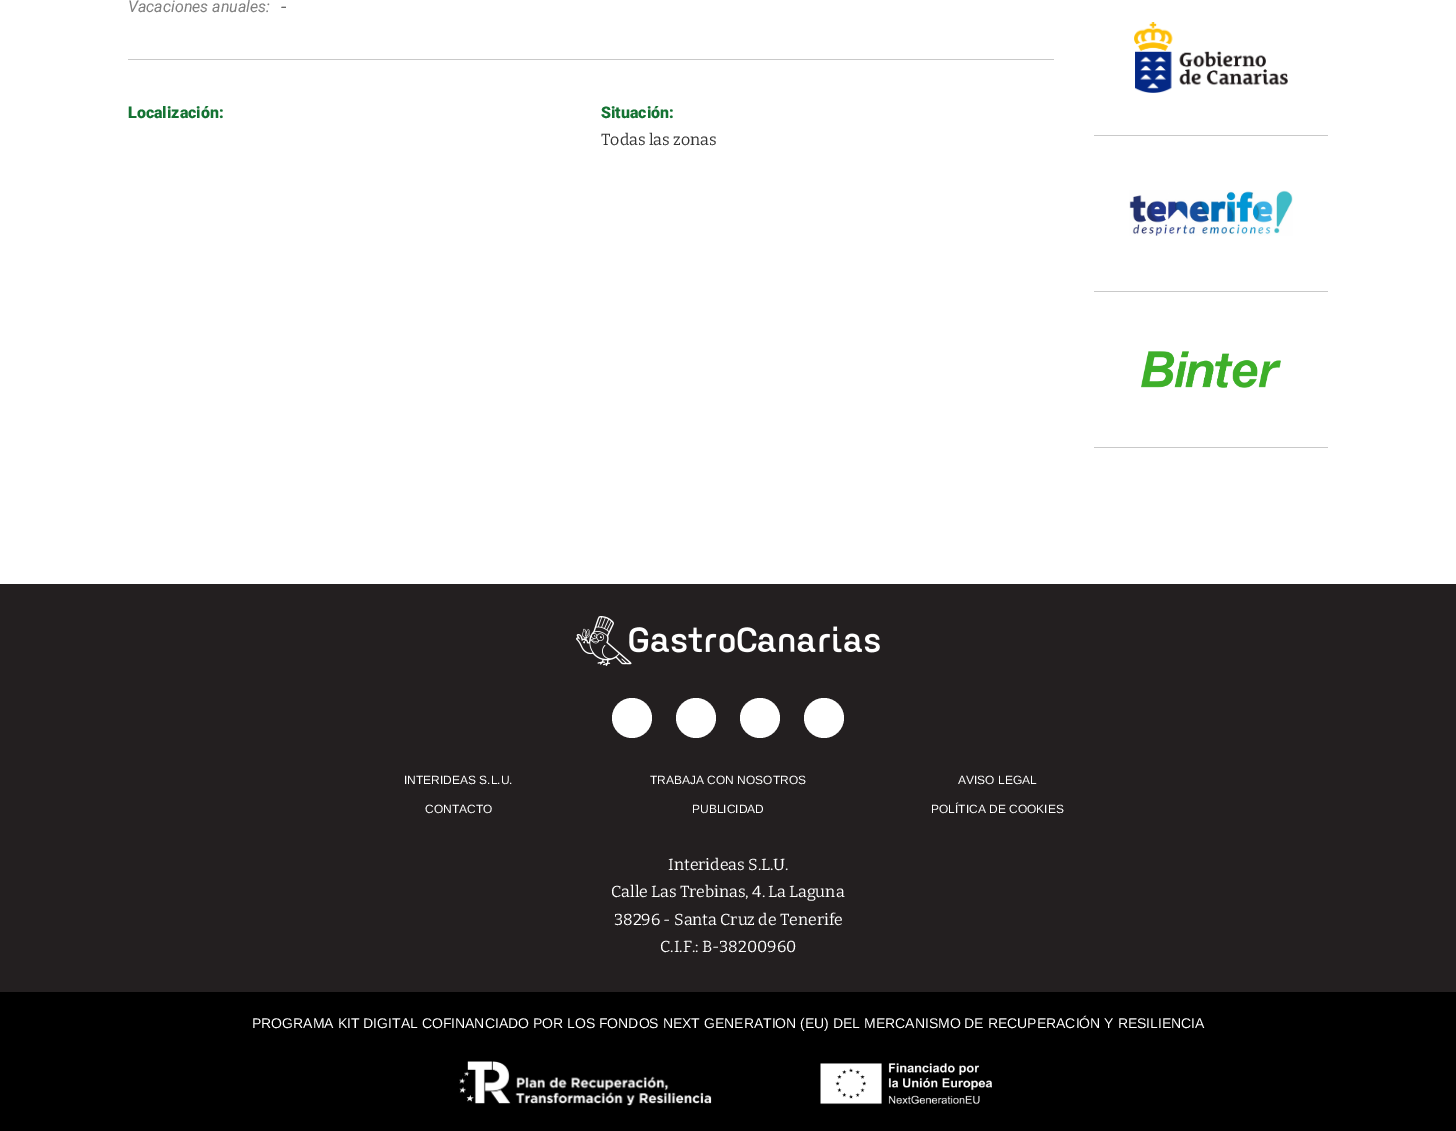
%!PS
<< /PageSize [1456 1131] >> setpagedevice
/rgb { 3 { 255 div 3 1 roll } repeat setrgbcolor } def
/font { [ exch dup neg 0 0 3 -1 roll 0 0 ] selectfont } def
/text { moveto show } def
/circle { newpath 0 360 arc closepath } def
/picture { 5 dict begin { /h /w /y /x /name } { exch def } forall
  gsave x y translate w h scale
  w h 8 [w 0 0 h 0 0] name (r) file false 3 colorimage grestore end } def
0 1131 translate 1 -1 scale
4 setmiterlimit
255 255 255 rgb
0 0 1456 1131 rectfill
201 201 201 rgb
128 59 926 1 rectfill
(img_01.rgb) 1134 22 154 71 picture
1094 135 234 1 rectfill
(img_02.rgb) 1129 190 164 46 picture
1094 291 234 1 rectfill
(img_03.rgb) 1141 351 140 37 picture
1094 447 234 1 rectfill
35 31 32 rgb
0 584 1456 408 rectfill
(img_04.rgb) 576 616 304 50 picture
255 255 255 rgb
632 718 20 circle fill
696 718 20 circle fill
760 718 20 circle fill
824 718 20 circle fill
0 0 0 rgb
0 992 1456 139 rectfill
(img_05.rgb) 459 1061 253 45 picture
(img_06.rgb) 820 1063 172 42 picture
/Roboto-Italic 16 font
128 128 128 rgb
(Vacaciones anuales:) 128 12 text
/Bitter-Regular 16 font
54 54 54 rgb
(-) 280 12 text
/Roboto-Black 16 font
20 115 51 rgb
(Localización:) 128 118 text
(Situación:) 601 118 text
/Bitter-Regular 16 font
54 54 54 rgb
(Todas las zonas) 601 145 text
/LiberationSans-Regular 12 font
255 255 255 rgb
(INTERIDEAS S.L.U.) 404 784 text
(TRABAJA CON NOSOTROS) 650 784 text
(AVISO LEGAL) 958 784 text
(CONTACTO) 425 813 text
(PUBLICIDAD) 692 813 text
(POLÍTICA DE COOKIES) 931 813 text
/Bitter-Regular 16 font
(Interideas S.L.U.) 668 870 text
(Calle Las Trebinas, 4. La Laguna) 611 897 text
(38296 - Santa Cruz de Tenerife) 614 925 text
(C.I.F.: B-38200960) 660 952 text
/LiberationSans-Regular 14 font
(PROGRAMA KIT DIGITAL COFINANCIADO POR LOS FONDOS NEXT GENERATION \(EU\) DEL MERCANISMO DE RECUPERACIÓN Y RESILIENCIA) 252 1028 text
showpage
